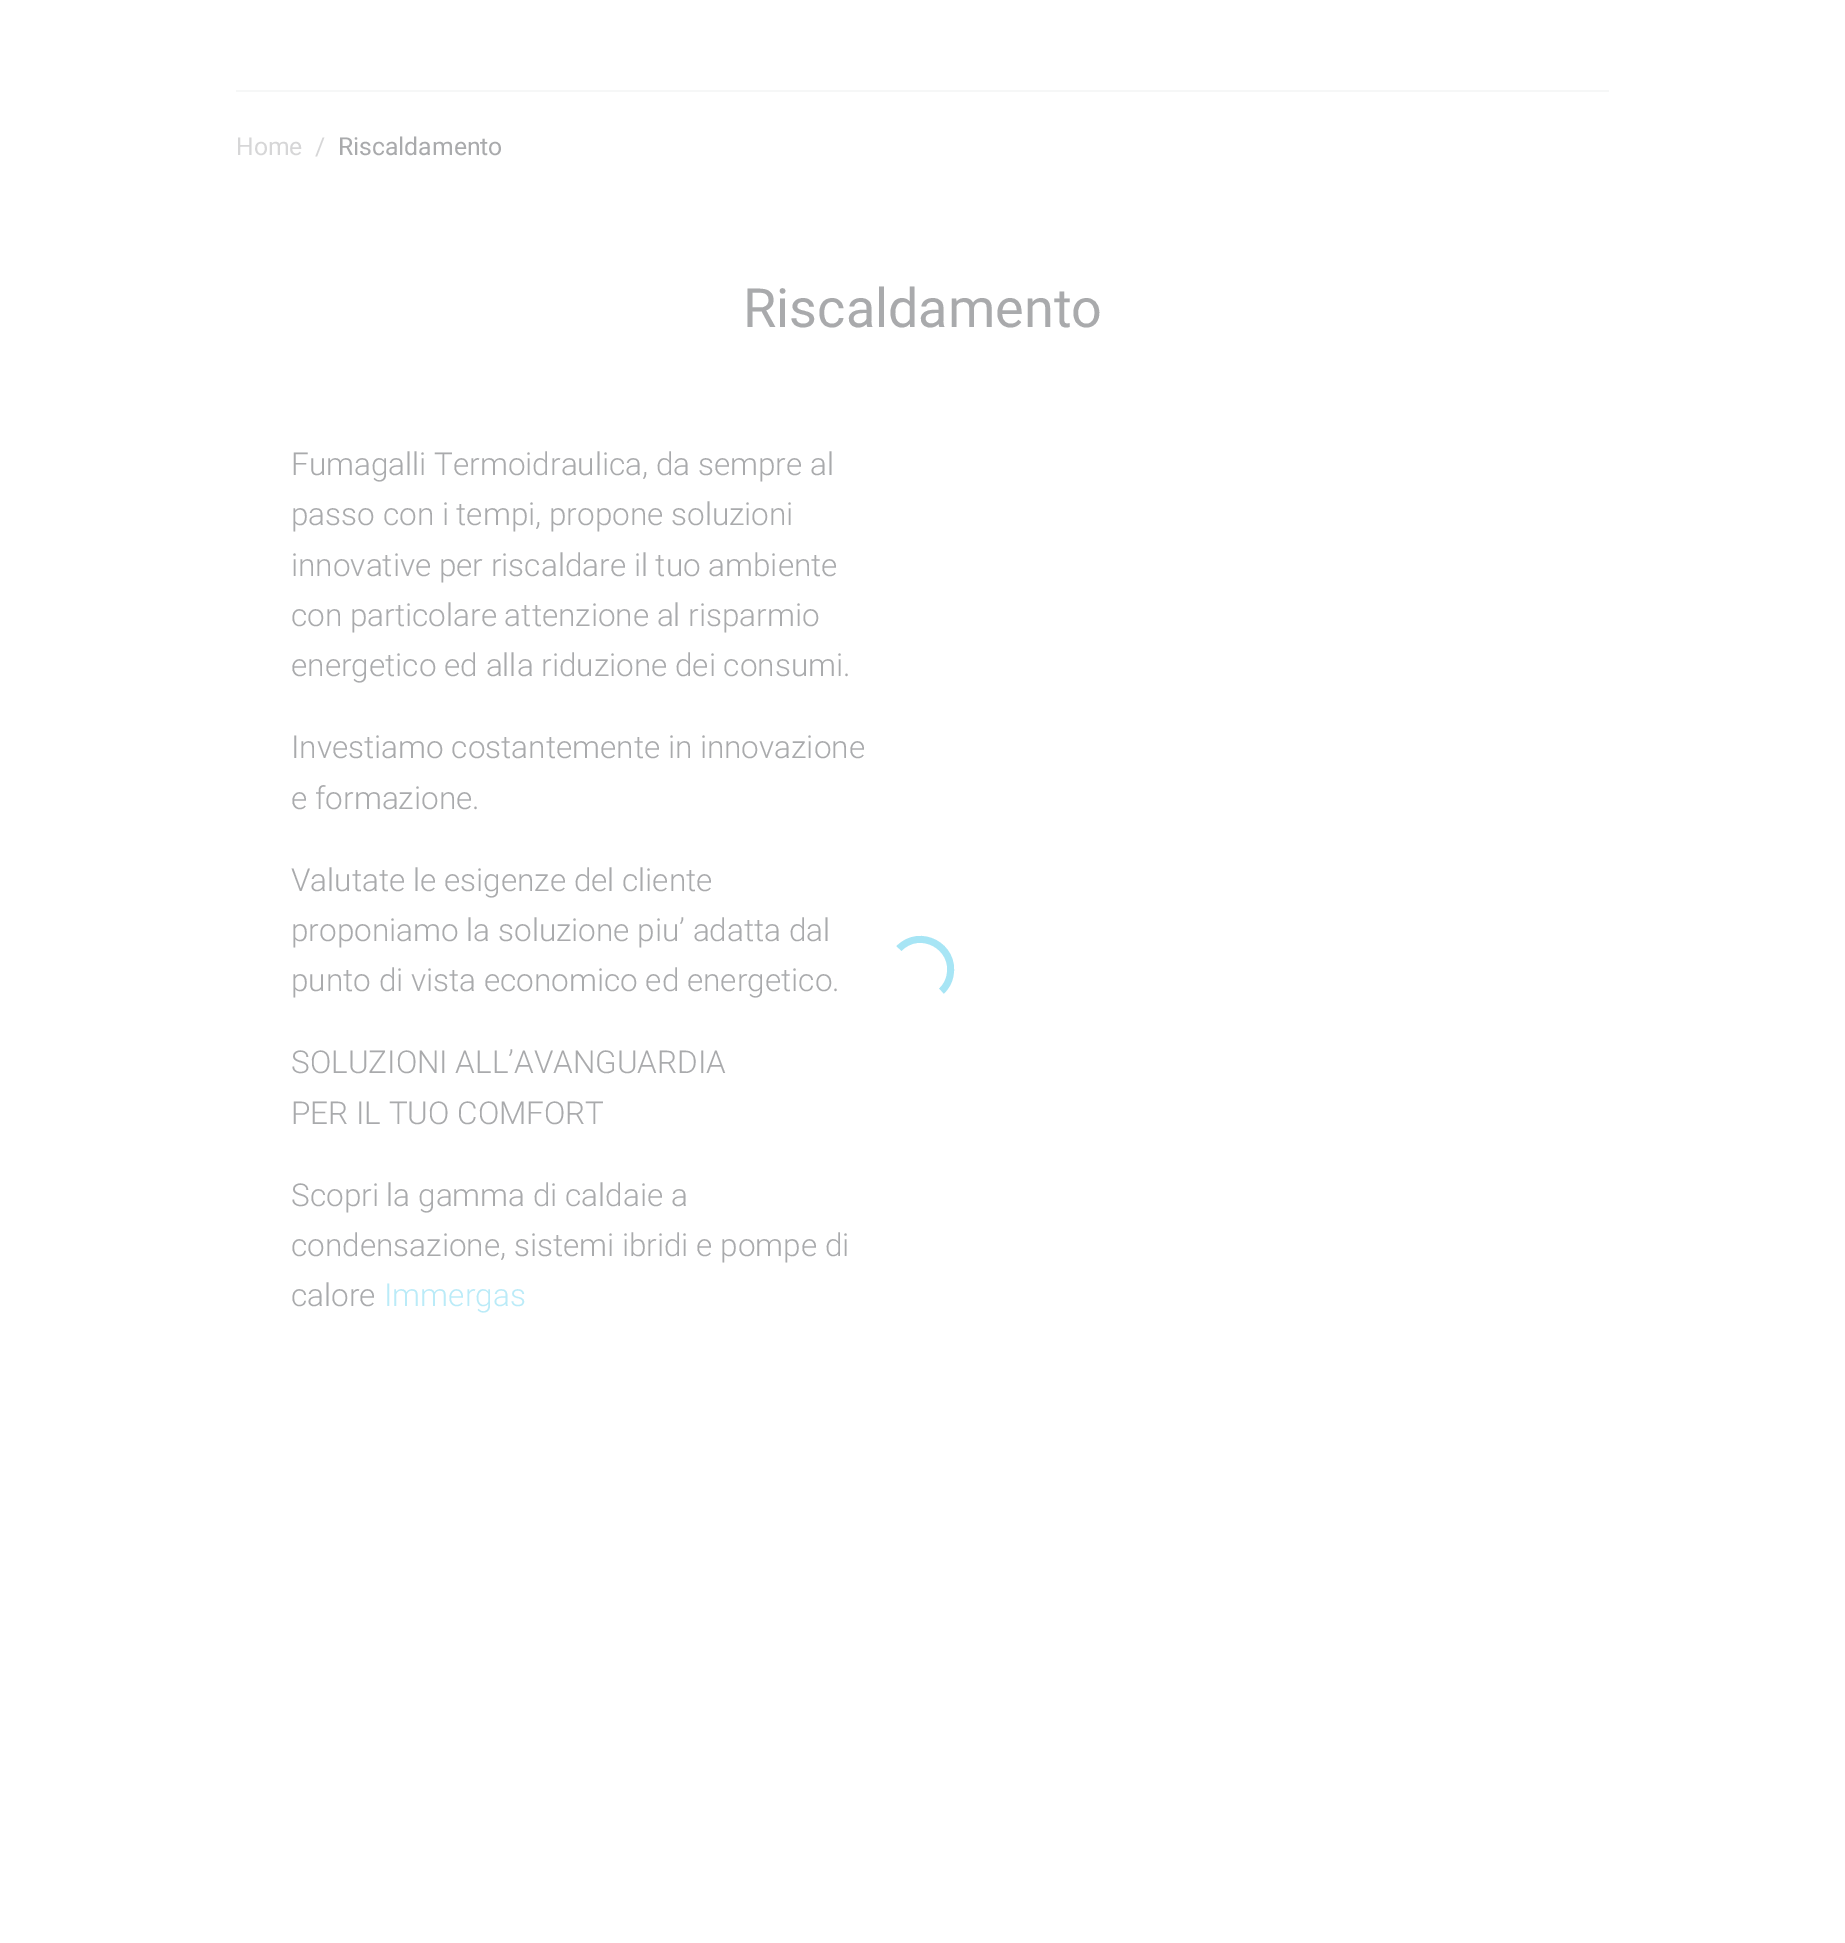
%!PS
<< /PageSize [1845 1943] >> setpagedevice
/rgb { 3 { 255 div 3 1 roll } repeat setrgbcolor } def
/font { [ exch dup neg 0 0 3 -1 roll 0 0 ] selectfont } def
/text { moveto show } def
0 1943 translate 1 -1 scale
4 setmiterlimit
255 255 255 rgb
0 0 1845 1943 rectfill
246 247 247 rgb
236 90 1373 2 rectfill
167 229 245 rgb
6.8 setlinewidth
899 948.5 moveto 21 -21.5 57 -2 51 27 rcurveto -1 6 -4 11.5 -8.5 15.5 rcurveto stroke
/Roboto-Regular 24.75 font
214 214 215 rgb
(Home) 236 155 text
(/) 315 155 text
169 170 172 rgb
(Riscaldamento) 338 155 text
/Roboto-Regular 54 font
(Riscaldamento) 743 327 text
/Roboto-Light 31.5 font
(Fumagalli Termoidraulica, da sempre al) 291 475 text
(passo con i tempi, propone soluzioni) 291 525 text
(innovative per riscaldare il tuo ambiente) 291 576 text
(con particolare attenzione al risparmio) 291 626 text
(energetico ed alla riduzione dei consumi.) 291 676 text
(Investiamo costantemente in innovazione) 291 758 text
(e formazione.) 291 809 text
(Valutate le esigenze del cliente) 291 891 text
(proponiamo la soluzione piu’ adatta dal) 291 941 text
(punto di vista economico ed energetico.) 291 991 text
(SOLUZIONI ALL’AVANGUARDIA) 291 1073 text
(PER IL TUO COMFORT) 291 1124 text
(Scopri la gamma di caldaie a) 291 1206 text
(condensazione, sistemi ibridi e pompe di) 291 1256 text
(calore) 291 1306 text
186 235 248 rgb
(Immergas) 384 1306 text
showpage
